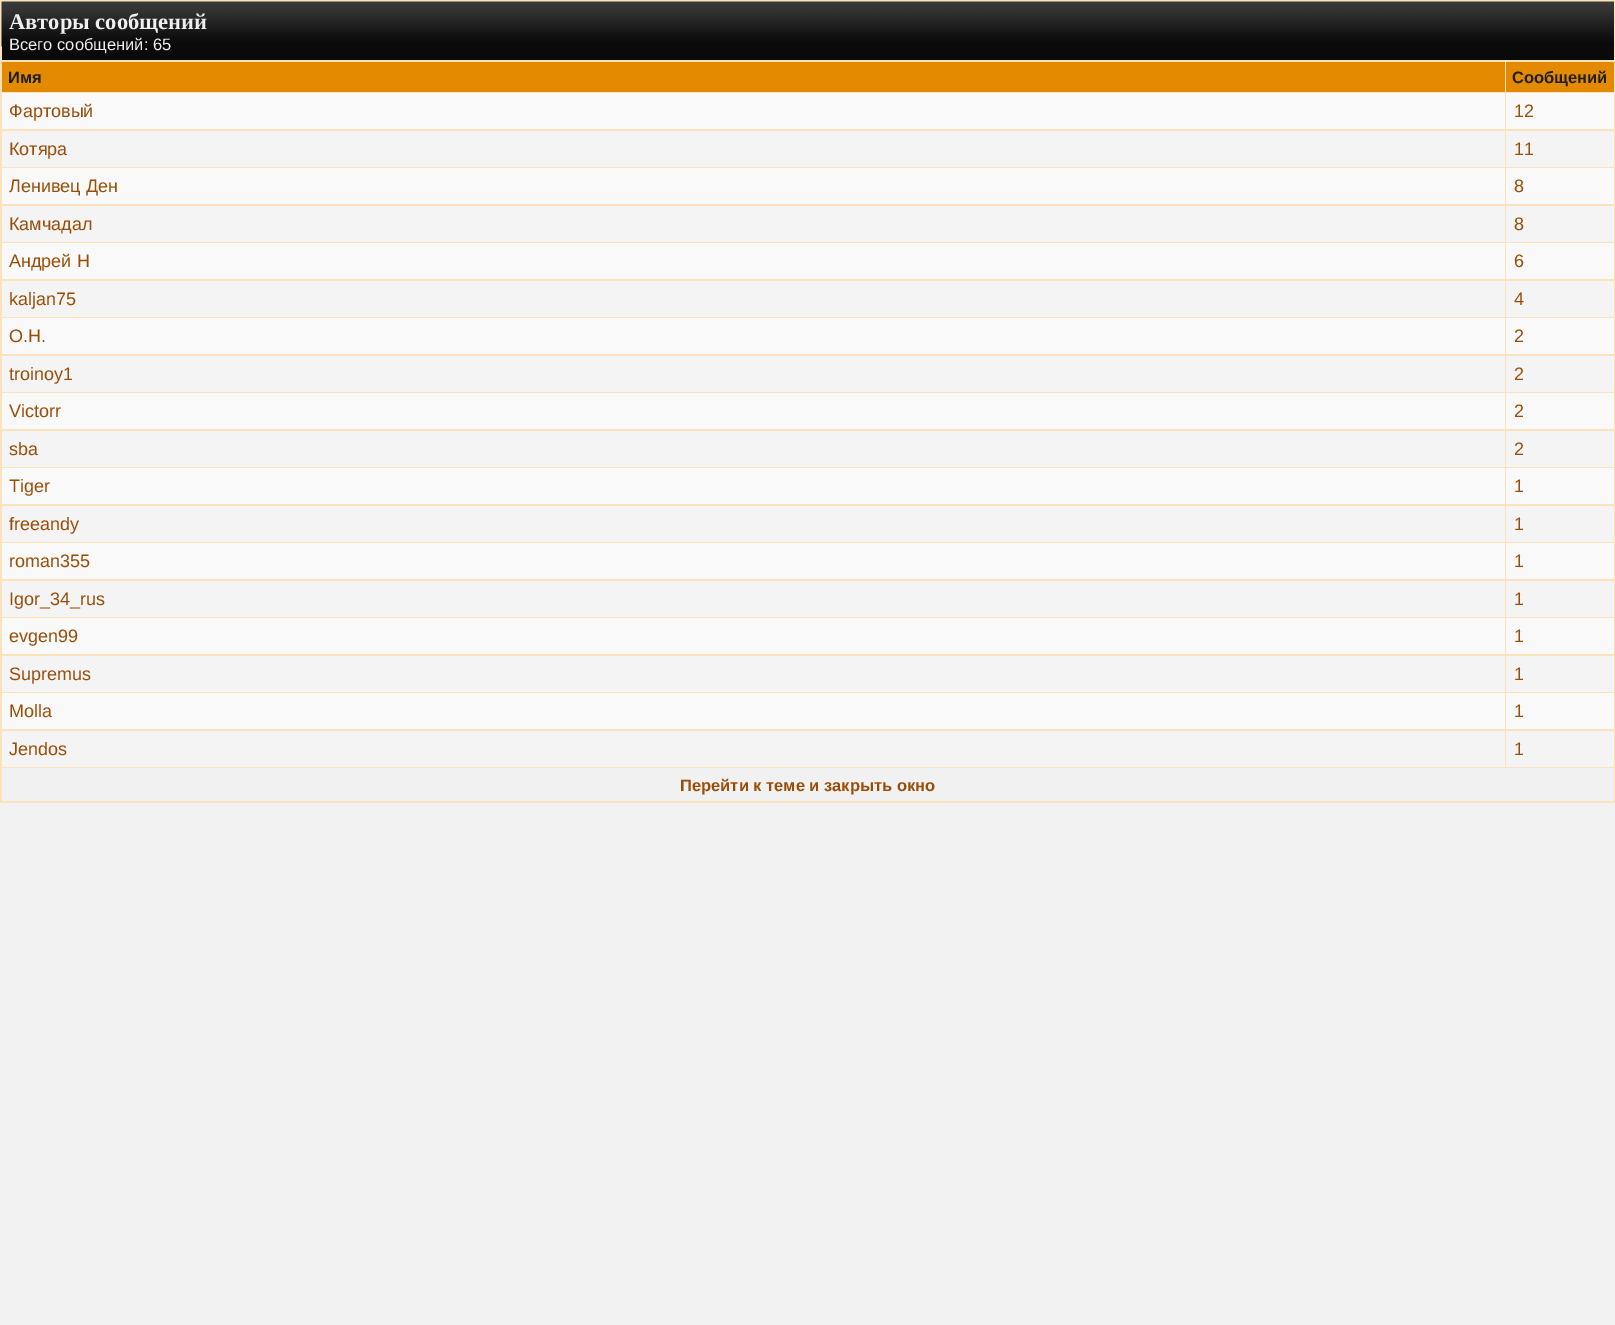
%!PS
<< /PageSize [1615 1325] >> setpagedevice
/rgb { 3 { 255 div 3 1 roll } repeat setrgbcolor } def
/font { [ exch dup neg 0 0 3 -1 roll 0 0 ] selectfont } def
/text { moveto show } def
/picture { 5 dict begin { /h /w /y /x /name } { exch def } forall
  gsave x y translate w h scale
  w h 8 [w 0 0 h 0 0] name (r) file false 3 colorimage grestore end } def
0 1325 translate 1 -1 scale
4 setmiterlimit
242 242 242 rgb
0 0 1615 1325 rectfill
252 226 186 rgb
0 0 1615 803 rectfill
10 10 10 rgb
2 46 1612 14 rectfill
(img_01.rgb) 1 1 1613 46 picture
228 138 0 rgb
2 62 1503 30 rectfill
1506 62 108 30 rectfill
249 249 249 rgb
2 93 1503 36 rectfill
1506 93 108 36 rectfill
244 244 244 rgb
2 131 1503 36 rectfill
1506 131 108 36 rectfill
249 249 249 rgb
2 168 1503 36 rectfill
1506 168 108 36 rectfill
244 244 244 rgb
2 206 1503 36 rectfill
1506 206 108 36 rectfill
249 249 249 rgb
2 243 1503 36 rectfill
1506 243 108 36 rectfill
244 244 244 rgb
2 281 1503 36 rectfill
1506 281 108 36 rectfill
249 249 249 rgb
2 318 1503 36 rectfill
1506 318 108 36 rectfill
244 244 244 rgb
2 356 1503 36 rectfill
1506 356 108 36 rectfill
249 249 249 rgb
2 393 1503 36 rectfill
1506 393 108 36 rectfill
244 244 244 rgb
2 431 1503 36 rectfill
1506 431 108 36 rectfill
249 249 249 rgb
2 468 1503 36 rectfill
1506 468 108 36 rectfill
244 244 244 rgb
2 506 1503 36 rectfill
1506 506 108 36 rectfill
249 249 249 rgb
2 543 1503 36 rectfill
1506 543 108 36 rectfill
244 244 244 rgb
2 581 1503 36 rectfill
1506 581 108 36 rectfill
249 249 249 rgb
2 618 1503 36 rectfill
1506 618 108 36 rectfill
244 244 244 rgb
2 656 1503 36 rectfill
1506 656 108 36 rectfill
249 249 249 rgb
2 693 1503 36 rectfill
1506 693 108 36 rectfill
244 244 244 rgb
2 731 1503 36 rectfill
1506 731 108 36 rectfill
241 241 241 rgb
2 768 1612 33 rectfill
/LiberationSerif-Bold 22.5 font
239 239 239 rgb
(Авторы сообщений) 9 29 text
/LiberationSans-Regular 16.5 font
(Всего сообщений: 65) 9 50 text
/LiberationSans-Bold 16.5 font
31 31 31 rgb
(Имя) 8 83 text
(Сообщений) 1512 83 text
/LiberationSans-Regular 18 font
154 77 7 rgb
(Фартовый) 9 117 text
(12) 1514 117 text
(Котяра) 9 155 text
(11) 1514 155 text
(Ленивец Ден) 9 192 text
(8) 1514 192 text
(Камчадал) 9 230 text
(8) 1514 230 text
(Андрей Н) 9 267 text
(6) 1514 267 text
(kaljan75) 9 305 text
(4) 1514 305 text
(О.Н.) 9 342 text
(2) 1514 342 text
(troinoy1) 9 380 text
(2) 1514 380 text
(Victorr) 9 417 text
(2) 1514 417 text
(sba) 9 455 text
(2) 1514 455 text
(Tiger) 9 492 text
(1) 1514 492 text
(freeandy) 9 530 text
(1) 1514 530 text
(roman355) 9 567 text
(1) 1514 567 text
(Igor_34_rus) 9 605 text
(1) 1514 605 text
(evgen99) 9 642 text
(1) 1514 642 text
(Supremus) 9 680 text
(1) 1514 680 text
(Molla) 9 717 text
(1) 1514 717 text
(Jendos) 9 755 text
(1) 1514 755 text
/LiberationSans-Bold 16.5 font
(Перейти к теме и закрыть окно) 680 791 text
showpage
